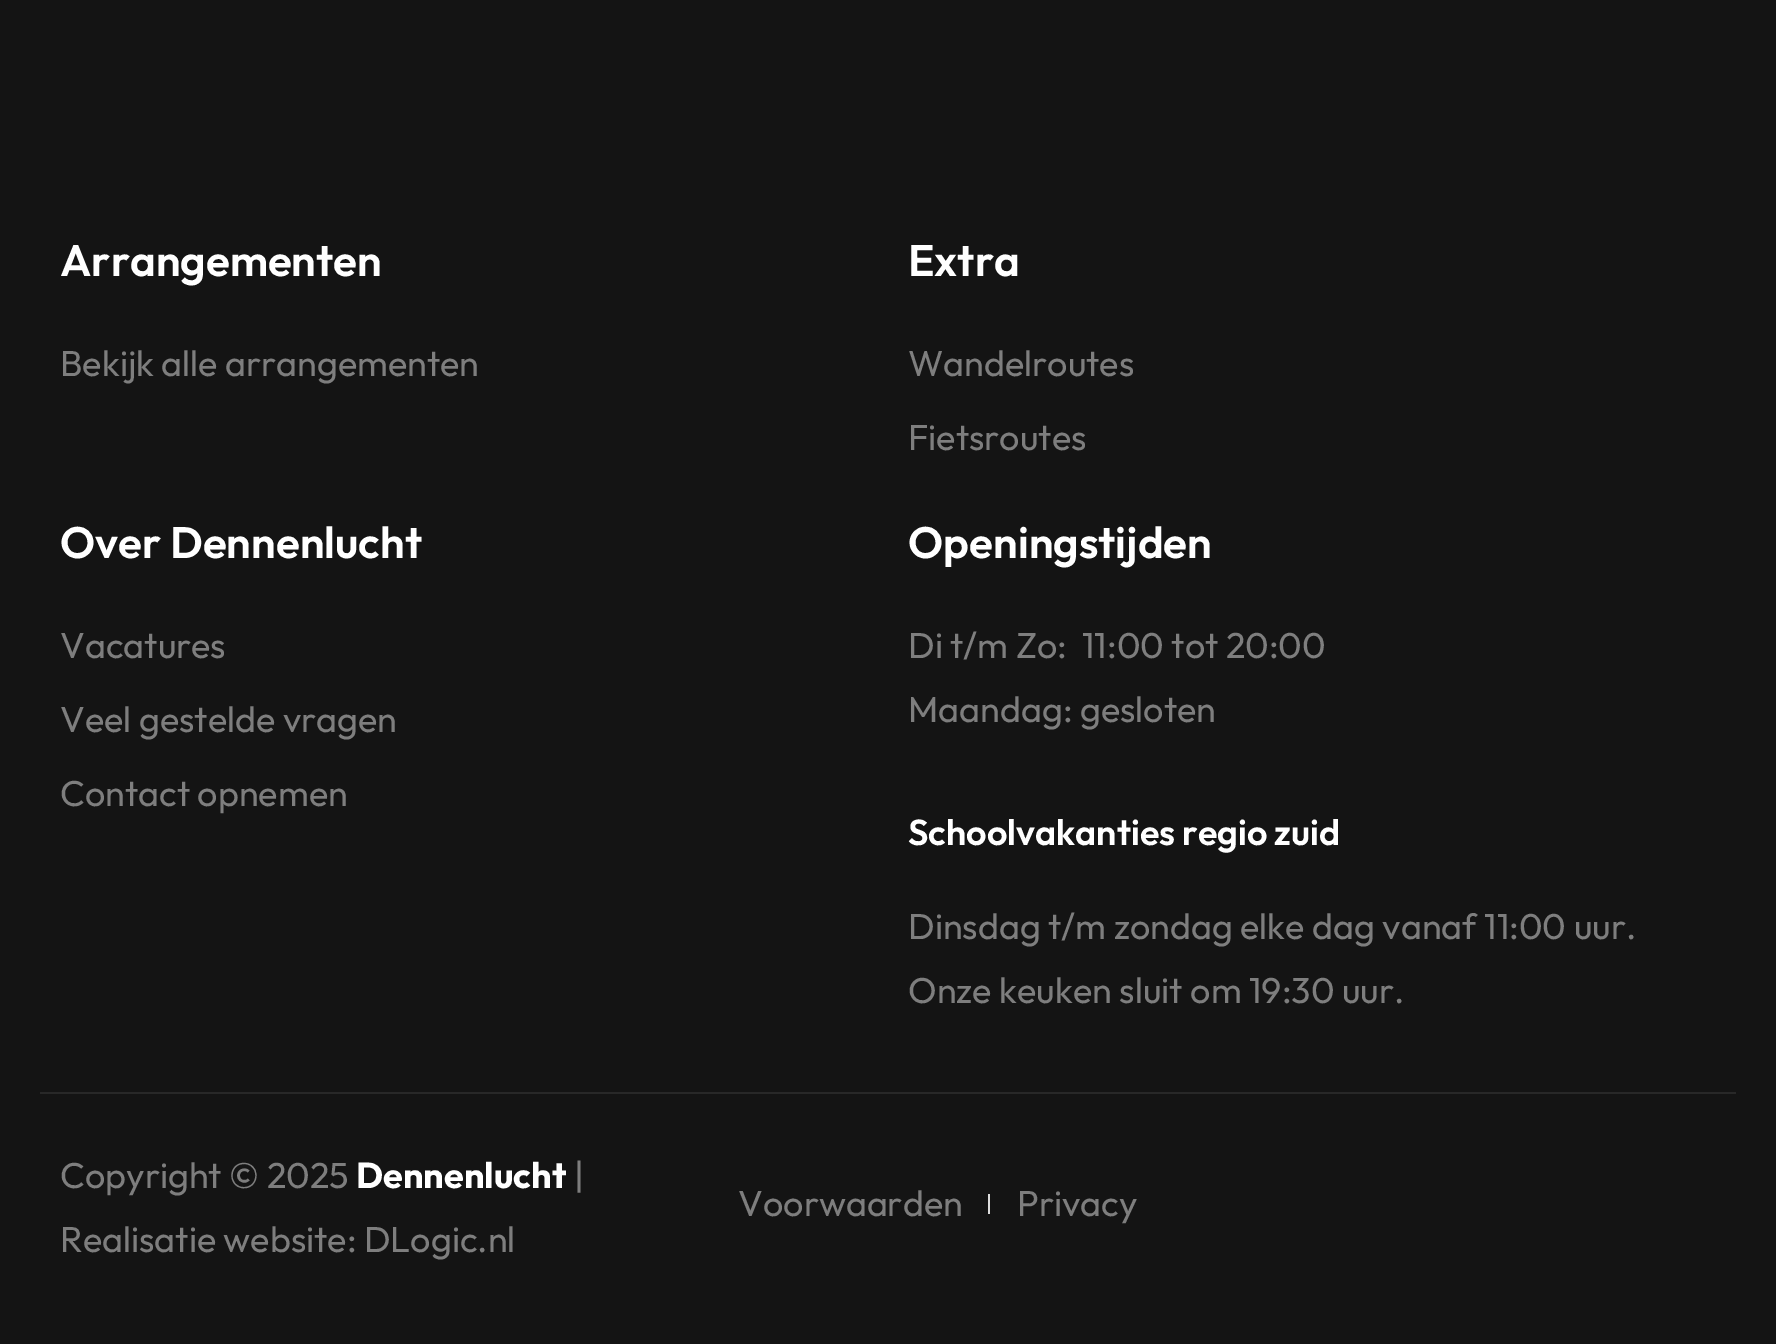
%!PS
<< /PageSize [1776 1344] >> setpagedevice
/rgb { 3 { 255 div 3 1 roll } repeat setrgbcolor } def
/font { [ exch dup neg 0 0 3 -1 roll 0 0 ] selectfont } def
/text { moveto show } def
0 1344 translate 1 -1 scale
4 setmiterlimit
20 20 20 rgb
0 0 1776 1344 rectfill
40 40 40 rgb
40 1092 1696 2 rectfill
221 221 221 rgb
988 1194 2 20 rectfill
/Outfit-SemiBold 44 font
255 255 255 rgb
(Arrangementen) 60 276 text
/Outfit-Regular 36 font
126 126 126 rgb
(Bekijk alle arrangementen) 60 376 text
/Outfit-SemiBold 44 font
255 255 255 rgb
(Extra) 908 276 text
/Outfit-Regular 36 font
126 126 126 rgb
(Wandelroutes) 908 376 text
(Fietsroutes) 908 450 text
/Outfit-SemiBold 44 font
255 255 255 rgb
(Over Dennenlucht) 60 558 text
/Outfit-Regular 36 font
126 126 126 rgb
(Vacatures) 60 658 text
(Veel gestelde vragen) 60 732 text
(Contact opnemen) 60 806 text
/Outfit-SemiBold 44 font
255 255 255 rgb
(Openingstijden) 908 558 text
/Outfit-Regular 36 font
126 126 126 rgb
(Di t/m Zo:  11:00 tot 20:00) 908 658 text
(Maandag: gesloten) 908 722 text
/Outfit-SemiBold 36 font
255 255 255 rgb
(Schoolvakanties regio zuid) 908 845 text
/Outfit-Regular 36 font
126 126 126 rgb
(Dinsdag t/m zondag elke dag vanaf 11:00 uur.) 908 939 text
(Onze keuken sluit om 19:30 uur.) 908 1003 text
(Copyright © 2025) 60 1188 text
/Outfit-Bold 36 font
255 255 255 rgb
(Dennenlucht) 356 1188 text
/Outfit-Regular 36 font
126 126 126 rgb
(|) 574 1188 text
(Realisatie website: DLogic.nl) 60 1252 text
(Voorwaarden) 738 1216 text
(Privacy) 1017 1216 text
showpage
